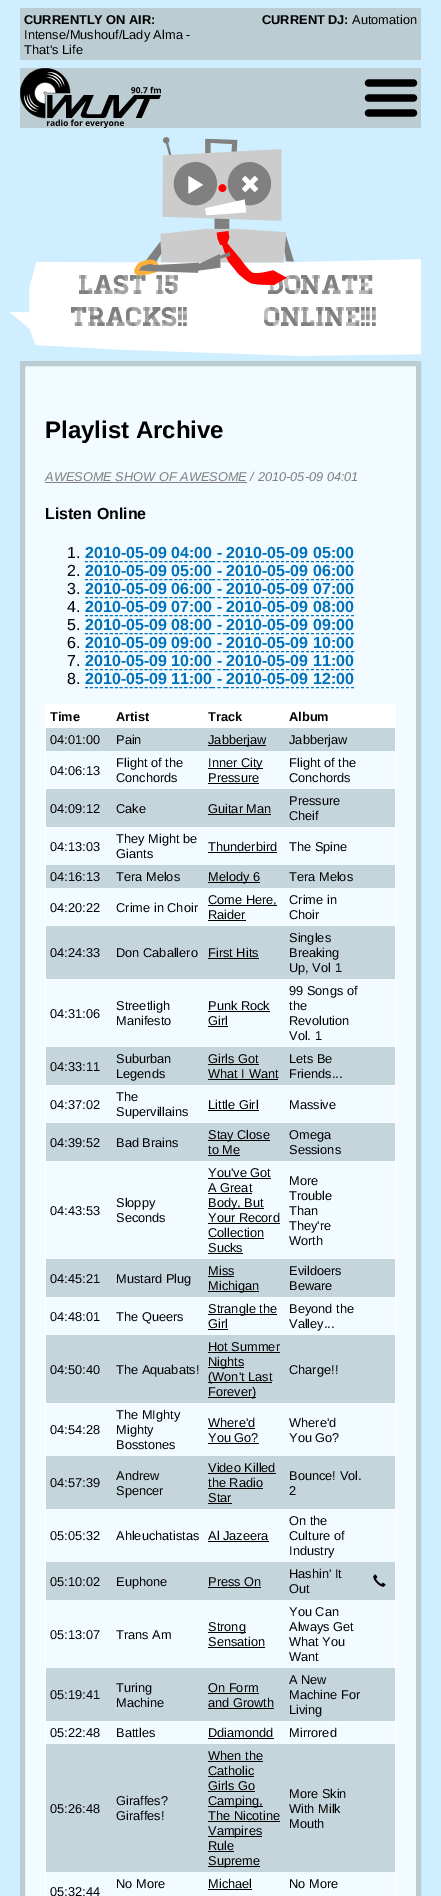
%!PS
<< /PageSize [441 1896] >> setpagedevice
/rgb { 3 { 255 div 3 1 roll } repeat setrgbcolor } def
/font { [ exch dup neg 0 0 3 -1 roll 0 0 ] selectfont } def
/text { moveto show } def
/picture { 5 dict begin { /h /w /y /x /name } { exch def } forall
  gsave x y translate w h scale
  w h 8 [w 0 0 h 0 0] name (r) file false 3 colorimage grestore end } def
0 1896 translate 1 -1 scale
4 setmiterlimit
207 238 255 rgb
0 0 441 1896 rectfill
188 204 211 rgb
20 8 401 52 rectfill
20 68 401 60 rectfill
(img_01.rgb) 20 68 141 60 picture
(img_02.rgb) 364 79 54 38 picture
(img_06.rgb) 9 259 412 97 picture
242 251 255 rgb
22.5 363.5 moveto 396 0 rlineto 0 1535 rlineto -396 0 rlineto closepath gsave fill grestore
188 204 211 rgb
5 setlinewidth
stroke
128 128 128 rgb
45 482 202 1 rectfill
0 113 188 rgb
1 setlinewidth
[3 1.96] 0 setdash
85 561.5 moveto 127 0 rlineto stroke
[] 0 setdash
212 561.5 moveto 3 0 rlineto 217.5 561.5 moveto 3 0 rlineto 223 561.5 moveto 3 0 rlineto stroke
[3 2] 0 setdash
226 561.5 moveto 128 0 rlineto stroke
[3 1.96] 0 setdash
85 579.5 moveto 127 0 rlineto stroke
[] 0 setdash
212 579.5 moveto 3 0 rlineto 217.5 579.5 moveto 3 0 rlineto 223 579.5 moveto 3 0 rlineto stroke
[3 2] 0 setdash
226 579.5 moveto 128 0 rlineto stroke
[3 1.96] 0 setdash
85 597.5 moveto 127 0 rlineto stroke
[] 0 setdash
212 597.5 moveto 3 0 rlineto 217.5 597.5 moveto 3 0 rlineto 223 597.5 moveto 3 0 rlineto stroke
[3 2] 0 setdash
226 597.5 moveto 128 0 rlineto stroke
[3 1.96] 0 setdash
85 615.5 moveto 127 0 rlineto stroke
[] 0 setdash
212 615.5 moveto 3 0 rlineto 217.5 615.5 moveto 3 0 rlineto 223 615.5 moveto 3 0 rlineto stroke
[3 2] 0 setdash
226 615.5 moveto 128 0 rlineto stroke
[3 1.96] 0 setdash
85 633.5 moveto 127 0 rlineto stroke
[] 0 setdash
212 633.5 moveto 3 0 rlineto 217.5 633.5 moveto 3 0 rlineto 223 633.5 moveto 3 0 rlineto stroke
[3 2] 0 setdash
226 633.5 moveto 128 0 rlineto stroke
[3 1.96] 0 setdash
85 651.5 moveto 127 0 rlineto stroke
[] 0 setdash
212 651.5 moveto 3 0 rlineto 217.5 651.5 moveto 3 0 rlineto 223 651.5 moveto 3 0 rlineto stroke
[3 2] 0 setdash
226 651.5 moveto 128 0 rlineto stroke
[3 1.96] 0 setdash
85 669.5 moveto 127 0 rlineto stroke
[] 0 setdash
212 669.5 moveto 3 0 rlineto 217.5 669.5 moveto 3 0 rlineto 223 669.5 moveto 3 0 rlineto stroke
[3 2] 0 setdash
226 669.5 moveto 128 0 rlineto stroke
[3 1.96] 0 setdash
85 687.5 moveto 127 0 rlineto stroke
[] 0 setdash
212 687.5 moveto 3 0 rlineto 217.5 687.5 moveto 3 0 rlineto 223 687.5 moveto 3 0 rlineto stroke
[3 2] 0 setdash
226 687.5 moveto 128 0 rlineto stroke
255 255 255 rgb
45 704 351 1 rectfill
395 704 1 1192 rectfill
45 704 1 1192 rectfill
46 705 349 23 rectfill
197 213 220 rgb
46 728 349 23 rectfill
0 0 0 rgb
208 745 58 1 rectfill
208 768 55 1 rectfill
208 783 51 1 rectfill
197 213 220 rgb
46 789 349 38 rectfill
0 0 0 rgb
208 814 63 1 rectfill
208 852 69 1 rectfill
197 213 220 rgb
46 865 349 23 rectfill
0 0 0 rgb
208 882 52 1 rectfill
208 905 69 1 rectfill
208 920 38 1 rectfill
197 213 220 rgb
46 926 349 53 rectfill
0 0 0 rgb
208 958 51 1 rectfill
208 1011 62 1 rectfill
208 1026 20 1 rectfill
197 213 220 rgb
46 1047 349 38 rectfill
0 0 0 rgb
208 1064 51 1 rectfill
208 1079 70 1 rectfill
208 1110 51 1 rectfill
197 213 220 rgb
46 1123 349 38 rectfill
0 0 0 rgb
208 1140 62 1 rectfill
208 1155 32 1 rectfill
208 1178 63 1 rectfill
208 1193 44 1 rectfill
208 1208 56 1 rectfill
208 1223 72 1 rectfill
208 1238 56 1 rectfill
208 1253 35 1 rectfill
197 213 220 rgb
46 1259 349 38 rectfill
0 0 0 rgb
208 1276 26 1 rectfill
208 1291 51 1 rectfill
208 1314 69 1 rectfill
208 1329 20 1 rectfill
197 213 220 rgb
46 1335 349 68 rectfill
0 0 0 rgb
208 1352 72 1 rectfill
208 1367 36 1 rectfill
208 1382 64 1 rectfill
208 1397 48 1 rectfill
208 1428 47 1 rectfill
208 1443 51 1 rectfill
197 213 220 rgb
46 1456 349 53 rectfill
0 0 0 rgb
208 1473 68 1 rectfill
208 1488 55 1 rectfill
208 1503 24 1 rectfill
208 1541 61 1 rectfill
197 213 220 rgb
46 1562 349 38 rectfill
0 0 0 rgb
208 1587 53 1 rectfill
(img_07.rgb) 373 1574 13 13 picture
208 1632 38 1 rectfill
208 1647 57 1 rectfill
197 213 220 rgb
46 1668 349 53 rectfill
0 0 0 rgb
208 1693 51 1 rectfill
208 1708 66 1 rectfill
208 1738 66 1 rectfill
197 213 220 rgb
46 1744 349 128 rectfill
0 0 0 rgb
208 1761 55 1 rectfill
208 1776 46 1 rectfill
208 1791 47 1 rectfill
208 1806 55 1 rectfill
208 1821 72 1 rectfill
208 1836 54 1 rectfill
208 1851 26 1 rectfill
208 1866 52 1 rectfill
208 1889 44 1 rectfill
/LiberationSans-Bold 12.8 font
(CURRENTLY ON AIR:) 24 24 text
/LiberationSans-Regular 12.8 font
(Intense/Mushouf/Lady Alma -) 24 39 text
(That's Life) 24 54 text
/LiberationSans-Bold 12.8 font
(CURRENT DJ:) 262 24 text
/LiberationSans-Regular 12.8 font
(Automation) 352 24 text
/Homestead-Regular 27 font
128 128 128 rgb
(LAST 15) 79 294 text
(TRACKS!!) 71 326 text
(DONATE) 268 294 text
(img_03.rgb) 134 137 160 148 picture
(img_05.rgb) 241 175 18 18 picture
(img_04.rgb) 188 176 15 18 picture
(ONLINE!!!) 264 326 text
/LiberationSans-Bold 24 font
0 0 0 rgb
(Playlist Archive) 45 438 text
/LiberationSans-Italic 12.8 font
128 128 128 rgb
(AWESOME SHOW OF AWESOME / 2010-05-09 04:01) 45 481 text
/LiberationSans-Bold 16 font
0 0 0 rgb
(Listen Online) 45 519 text
/LiberationSans-Regular 16 font
(1.) 67 558 text
/LiberationSans-Bold 16 font
0 113 188 rgb
(2010-05-09 04:00 - 2010-05-09 05:00) 85 558 text
/LiberationSans-Regular 16 font
0 0 0 rgb
(2.) 67 576 text
/LiberationSans-Bold 16 font
0 113 188 rgb
(2010-05-09 05:00 - 2010-05-09 06:00) 85 576 text
/LiberationSans-Regular 16 font
0 0 0 rgb
(3.) 67 594 text
/LiberationSans-Bold 16 font
0 113 188 rgb
(2010-05-09 06:00 - 2010-05-09 07:00) 85 594 text
/LiberationSans-Regular 16 font
0 0 0 rgb
(4.) 67 612 text
/LiberationSans-Bold 16 font
0 113 188 rgb
(2010-05-09 07:00 - 2010-05-09 08:00) 85 612 text
/LiberationSans-Regular 16 font
0 0 0 rgb
(5.) 67 630 text
/LiberationSans-Bold 16 font
0 113 188 rgb
(2010-05-09 08:00 - 2010-05-09 09:00) 85 630 text
/LiberationSans-Regular 16 font
0 0 0 rgb
(6.) 67 648 text
/LiberationSans-Bold 16 font
0 113 188 rgb
(2010-05-09 09:00 - 2010-05-09 10:00) 85 648 text
/LiberationSans-Regular 16 font
0 0 0 rgb
(7.) 67 666 text
/LiberationSans-Bold 16 font
0 113 188 rgb
(2010-05-09 10:00 - 2010-05-09 11:00) 85 666 text
/LiberationSans-Regular 16 font
0 0 0 rgb
(8.) 67 684 text
/LiberationSans-Bold 16 font
0 113 188 rgb
(2010-05-09 11:00 - 2010-05-09 12:00) 85 684 text
/LiberationSans-Bold 12.8 font
0 0 0 rgb
(Time) 50 721 text
(Artist) 116 721 text
(Track) 208 721 text
(Album) 289 721 text
/LiberationSans-Regular 12.8 font
(04:01:00) 50 744 text
(Pain) 116 744 text
(Jabberjaw) 208 744 text
(Jabberjaw) 289 744 text
(04:06:13) 50 775 text
(Flight of the) 116 767 text
(Conchords) 116 782 text
(Inner City) 208 767 text
(Pressure) 208 782 text
(Flight of the) 289 767 text
(Conchords) 289 782 text
(04:09:12) 50 813 text
(Cake) 116 813 text
(Guitar Man) 208 813 text
(Pressure) 289 805 text
(Cheif) 289 820 text
(04:13:03) 50 851 text
(They Might be) 116 843 text
(Giants) 116 858 text
(Thunderbird) 208 851 text
(The Spine) 289 851 text
(04:16:13) 50 881 text
(Tera Melos) 116 881 text
(Melody 6) 208 881 text
(Tera Melos) 289 881 text
(04:20:22) 50 912 text
(Crime in Choir) 116 912 text
(Come Here,) 208 904 text
(Raider) 208 919 text
(Crime in) 289 904 text
(Choir) 289 919 text
(04:24:33) 50 957 text
(Don Caballero) 116 957 text
(First Hits) 208 957 text
(Singles) 289 942 text
(Breaking) 289 957 text
(Up, Vol 1) 289 972 text
(04:31:06) 50 1018 text
(Streetligh) 116 1010 text
(Manifesto) 116 1025 text
(Punk Rock) 208 1010 text
(Girl) 208 1025 text
(99 Songs of) 289 995 text
(the) 289 1010 text
(Revolution) 289 1025 text
(Vol. 1) 289 1040 text
(04:33:11) 50 1071 text
(Suburban) 116 1063 text
(Legends) 116 1078 text
(Girls Got) 208 1063 text
(What I Want) 208 1078 text
(Lets Be) 289 1063 text
(Friends...) 289 1078 text
(04:37:02) 50 1109 text
(The) 116 1101 text
(Supervillains) 116 1116 text
(Little Girl) 208 1109 text
(Massive) 289 1109 text
(04:39:52) 50 1147 text
(Bad Brains) 116 1147 text
(Stay Close) 208 1139 text
(to Me) 208 1154 text
(Omega) 289 1139 text
(Sessions) 289 1154 text
(04:43:53) 50 1215 text
(Sloppy) 116 1207 text
(Seconds) 116 1222 text
(You've Got) 208 1177 text
(A Great) 208 1192 text
(Body, But) 208 1207 text
(Your Record) 208 1222 text
(Collection) 208 1237 text
(Sucks) 208 1252 text
(More) 289 1185 text
(Trouble) 289 1200 text
(Than) 289 1215 text
(They're) 289 1230 text
(Worth) 289 1245 text
(04:45:21) 50 1283 text
(Mustard Plug) 116 1283 text
(Miss) 208 1275 text
(Michigan) 208 1290 text
(Evildoers) 289 1275 text
(Beware) 289 1290 text
(04:48:01) 50 1321 text
(The Queers) 116 1321 text
(Strangle the) 208 1313 text
(Girl) 208 1328 text
(Beyond the) 289 1313 text
(Valley...) 289 1328 text
(04:50:40) 50 1374 text
(The Aquabats!) 116 1374 text
(Hot Summer) 208 1351 text
(Nights) 208 1366 text
(\(Won't Last) 208 1381 text
(Forever\)) 208 1396 text
(Charge!!) 289 1374 text
(04:54:28) 50 1434 text
(The MIghty) 116 1419 text
(Mighty) 116 1434 text
(Bosstones) 116 1449 text
(Where'd) 208 1427 text
(You Go?) 208 1442 text
(Where'd) 289 1427 text
(You Go?) 289 1442 text
(04:57:39) 50 1487 text
(Andrew) 116 1480 text
(Spencer) 116 1495 text
(Video Killed) 208 1472 text
(the Radio) 208 1487 text
(Star) 208 1502 text
(Bounce! Vol.) 289 1480 text
(2) 289 1495 text
(05:05:32) 50 1540 text
(Ahleuchatistas) 116 1540 text
(Al Jazeera) 208 1540 text
(On the) 289 1525 text
(Culture of) 289 1540 text
(Industry) 289 1555 text
(05:10:02) 50 1586 text
(Euphone) 116 1586 text
(Press On) 208 1586 text
(Hashin' It) 289 1578 text
(Out) 289 1593 text
(05:13:07) 50 1639 text
(Trans Am) 116 1639 text
(Strong) 208 1631 text
(Sensation) 208 1646 text
(You Can) 289 1616 text
(Always Get) 289 1631 text
(What You) 289 1646 text
(Want) 289 1661 text
(05:19:41) 50 1699 text
(Turing) 116 1692 text
(Machine) 116 1707 text
(On Form) 208 1692 text
(and Growth) 208 1707 text
(A New) 289 1684 text
(Machine For) 289 1699 text
(Living) 289 1714 text
(05:22:48) 50 1737 text
(Battles) 116 1737 text
(Ddiamondd) 208 1737 text
(Mirrored) 289 1737 text
(05:26:48) 50 1813 text
(Giraffes?) 116 1805 text
(Giraffes!) 116 1820 text
(When the) 208 1760 text
(Catholic) 208 1775 text
(Girls Go) 208 1790 text
(Camping,) 208 1805 text
(The Nicotine) 208 1820 text
(Vampires) 208 1835 text
(Rule) 208 1850 text
(Supreme) 208 1865 text
(More Skin) 289 1798 text
(With Milk) 289 1813 text
(Mouth) 289 1828 text
(No More) 116 1888 text
(Michael) 208 1888 text
(No More) 289 1888 text
(05:32:44) 50 1896 text
showpage
